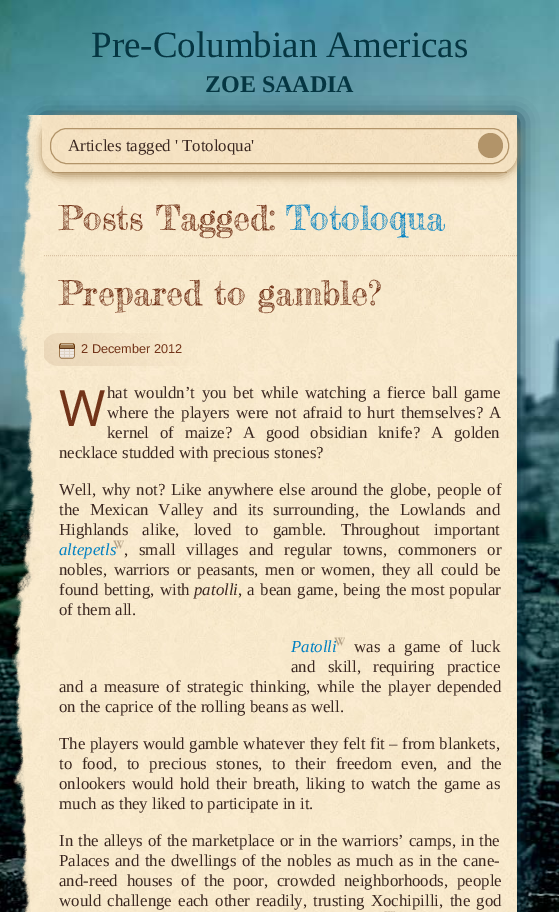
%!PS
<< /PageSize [559 912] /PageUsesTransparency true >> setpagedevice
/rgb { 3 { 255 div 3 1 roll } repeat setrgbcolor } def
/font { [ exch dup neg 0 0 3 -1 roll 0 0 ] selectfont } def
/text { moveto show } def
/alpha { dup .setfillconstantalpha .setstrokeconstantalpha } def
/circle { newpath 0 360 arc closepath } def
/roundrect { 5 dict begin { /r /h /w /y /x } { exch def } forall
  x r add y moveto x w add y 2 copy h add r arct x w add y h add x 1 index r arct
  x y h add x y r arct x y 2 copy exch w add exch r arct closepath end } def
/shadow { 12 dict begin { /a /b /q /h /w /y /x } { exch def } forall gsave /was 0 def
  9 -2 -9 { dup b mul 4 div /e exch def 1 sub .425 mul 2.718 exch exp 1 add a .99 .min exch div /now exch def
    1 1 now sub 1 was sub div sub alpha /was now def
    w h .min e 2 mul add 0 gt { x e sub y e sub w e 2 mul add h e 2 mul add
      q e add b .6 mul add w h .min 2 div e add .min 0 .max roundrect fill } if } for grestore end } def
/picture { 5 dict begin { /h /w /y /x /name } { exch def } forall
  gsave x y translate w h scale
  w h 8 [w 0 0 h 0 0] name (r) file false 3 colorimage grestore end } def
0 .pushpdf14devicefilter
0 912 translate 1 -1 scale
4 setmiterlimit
255 255 255 rgb
0 0 559 912 rectfill
(img_01.rgb) 0 0 559 912 picture
3 44 62 rgb
43 118 475 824 0 10 1 shadow
(img_02.rgb) 44 153 473 759 picture
218 194 163 rgb
[1 1] 0 setdash
42 255.5 moveto 475 0 rlineto stroke
(img_03.rgb) 11 115 33 797 picture
178 148 105 rgb
42 118 475 58 20 4.5 1 shadow
(img_04.rgb) 42 115 475 57 picture
52 172 455 1 rectfill
244 225 193 rgb
50 128 459 36 17 roundrect fill
(img_05.rgb) 52 128 457 35 picture
178 148 105 rgb
[] 0 setdash
50.5 128.5 458 35 16.5 roundrect stroke
490.5 145.5 12.5 circle fill
(img_06.rgb) 59 343 16 16 picture
(img_07.rgb) 113 540 11 9 picture
(img_08.rgb) 334 637 11 9 picture
(img_09.rgb) 384 911 11 1 picture
/LiberationSerif-Regular 37 font
5 54 66 rgb
(Pre-Columbian Americas) 91 57 text
/LiberationSerif-Bold 24 font
(ZOE SAADIA) 205 92 text
/LiberationSerif-Regular 16.85 font
59 40 33 rgb
(Articles tagged ' Totoloqua') 68 151 text
/FrederickatheGreat-Regular 33.75 font
114 52 25 rgb
(Posts Tagged:) 59 230 text
2 129 194 rgb
(Totoloqua) 286 230 text
114 52 25 rgb
(Prepared to gamble?) 59 305 text
/LiberationSans-Regular 12.75 font
(2 December 2012) 81 353 text
/NotoSans-Regular 50 font
(W) 59 426 text
/LiberationSerif-Regular 16.85 font
59 40 33 rgb
107 398 moveto 2.4 0 32 (hat wouldn’t you bet while watching a fierce ball game) widthshow
107 418 moveto 2 0 32 (where the players were not afraid to hurt themselves? A) widthshow
107 438 moveto 6.5 0 32 (kernel of maize? A good obsidian knife? A golden) widthshow
(necklace studded with precious stones?) 59 458 text
59 495 moveto 1.5 0 32 (Well, why not? Like anywhere else around the globe, people of) widthshow
59 515 moveto 5.75 0 32 (the Mexican Valley and its surrounding, the Lowlands and) widthshow
59 535 moveto 10 0 32 (Highlands alike, loved to gamble. Throughout important) widthshow
/LiberationSerif-Italic 16.85 font
2 129 194 rgb
(altepetls) 59 555 text
/LiberationSerif-Regular 16.85 font
59 40 33 rgb
124 555 moveto 6.5 0 32 (, small villages and regular towns, commoners or) widthshow
59 575 moveto 2.4 0 32 (nobles, warriors or peasants, men or women, they all could be) widthshow
59 595 moveto 1 0 32 (found betting, with) widthshow
/LiberationSerif-Italic 16.85 font
(patolli) 194 595 text
/LiberationSerif-Regular 16.85 font
238 595 moveto 1 0 32 (, a bean game, being the most popular) widthshow
(of them all.) 59 615 text
/LiberationSerif-Italic 16.85 font
2 129 194 rgb
(Patolli) 291 652 text
/LiberationSerif-Regular 16.85 font
59 40 33 rgb
354 652 moveto 4 0 32 (was a game of luck) widthshow
291 672 moveto 8 0 32 (and skill, requiring practice) widthshow
59 692 moveto 2.25 0 32 (and a measure of strategic thinking, while the player depended) widthshow
(on the caprice of the rolling beans as well.) 59 712 text
59 749 moveto 0.25 0 32 (The players would gamble whatever they felt fit – from blankets,) widthshow
59 769 moveto 5.5 0 32 (to food, to precious stones, to their freedom even, and the) widthshow
59 789 moveto 2 0 32 (onlookers would hold their breath, liking to watch the game as) widthshow
(much as they liked to participate in it.) 59 809 text
59 846 moveto 0.75 0 32 (In the alleys of the marketplace or in the warriors’ camps, in the) widthshow
59 866 moveto 1.25 0 32 (Palaces and the dwellings of the nobles as much as in the cane-) widthshow
59 886 moveto 4.5 0 32 (and-reed houses of the poor, crowded neighborhoods, people) widthshow
59 906 moveto 2 0 32 (would challenge each other readily, trusting Xochipilli, the god) widthshow
.poppdf14devicefilter showpage
